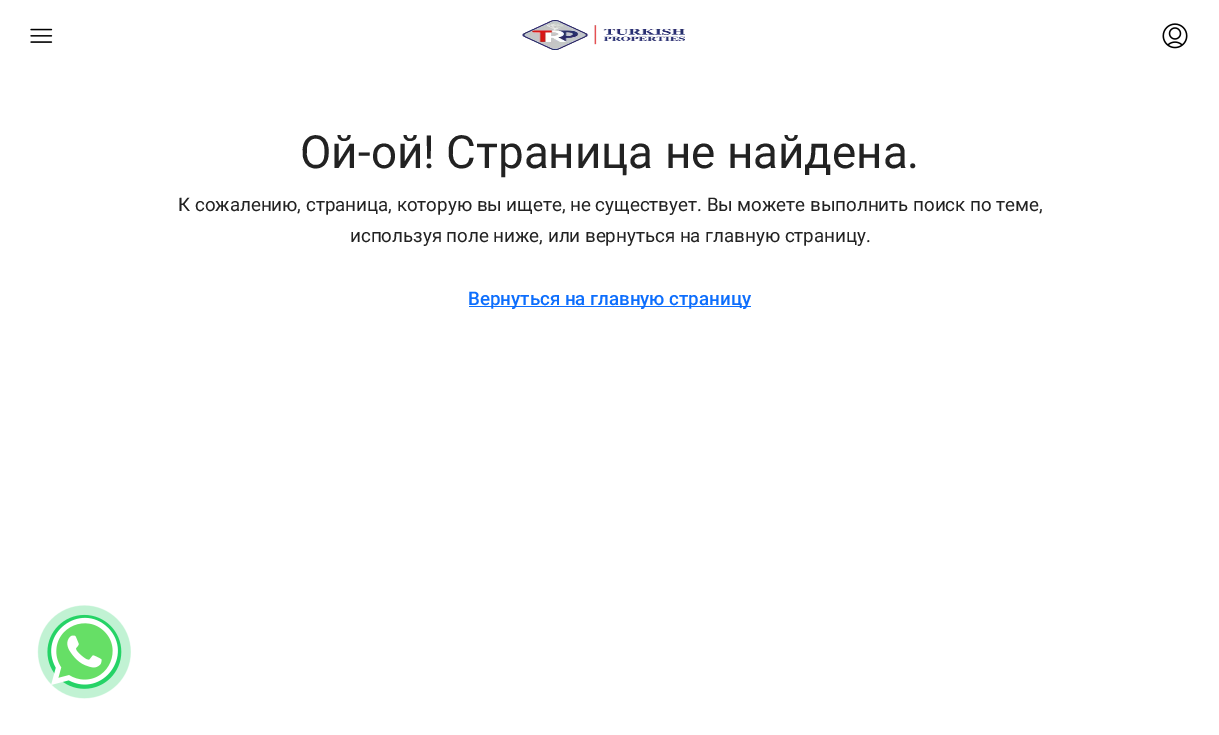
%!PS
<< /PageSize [1219 735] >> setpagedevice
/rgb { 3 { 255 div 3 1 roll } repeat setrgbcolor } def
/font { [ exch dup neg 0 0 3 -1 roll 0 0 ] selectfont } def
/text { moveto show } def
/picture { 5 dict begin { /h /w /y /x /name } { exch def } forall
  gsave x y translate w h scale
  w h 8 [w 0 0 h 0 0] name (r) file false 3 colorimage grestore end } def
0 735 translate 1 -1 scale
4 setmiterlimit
255 255 255 rgb
0 0 1219 735 rectfill
(img_01.rgb) 30 28 23 15 picture
(img_02.rgb) 522 20 163 30 picture
(img_03.rgb) 1162 23 26 26 picture
13 110 253 rgb
469 306 282 1 rectfill
(img_04.rgb) 37 605 94 94 picture
/Roboto-Regular 45.75 font
34 34 34 rgb
(Ой-ой! Страница не найдена.) 300 168 text
/Roboto-Regular 18.75 font
(К сожалению, страница, которую вы ищете, не существует. Вы можете выполнить поиск по теме,) 178 211 text
(используя поле ниже, или вернуться на главную страницу.) 350 242 text
/Roboto-Medium 18.75 font
13 110 253 rgb
(Вернуться на главную страницу) 468 305 text
showpage
